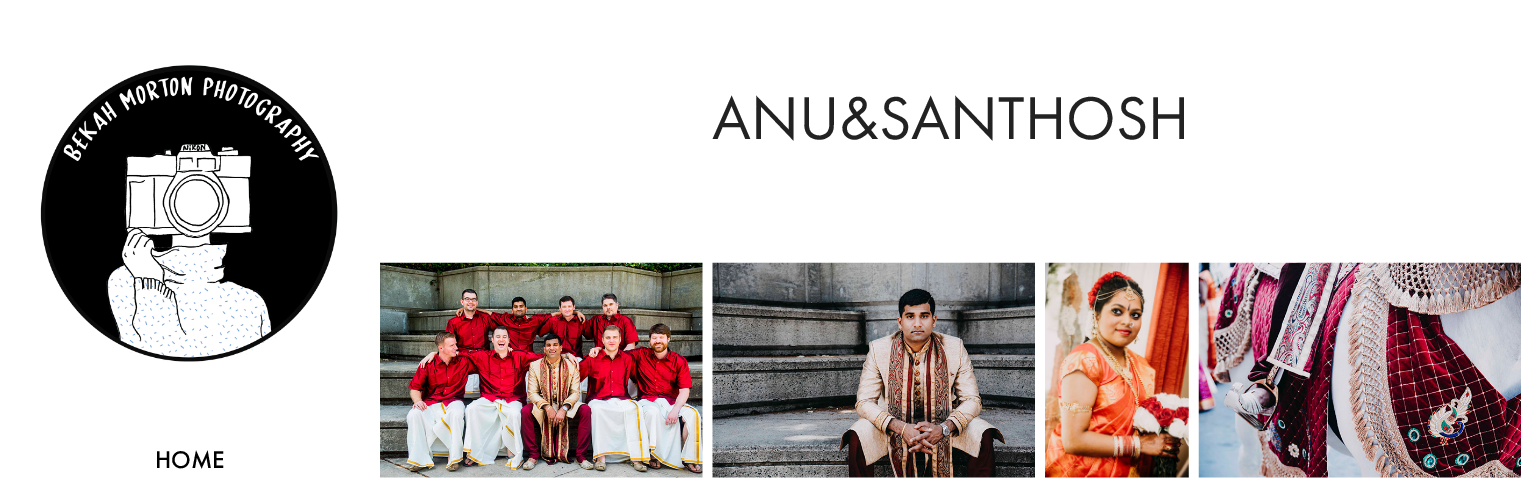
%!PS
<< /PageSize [1521 482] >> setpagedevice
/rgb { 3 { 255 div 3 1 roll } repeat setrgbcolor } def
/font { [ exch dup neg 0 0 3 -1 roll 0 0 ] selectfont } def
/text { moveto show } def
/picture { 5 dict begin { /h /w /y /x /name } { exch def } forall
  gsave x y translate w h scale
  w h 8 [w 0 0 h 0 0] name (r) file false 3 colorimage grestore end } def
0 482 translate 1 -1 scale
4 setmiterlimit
255 255 255 rgb
0 0 1521 482 rectfill
(img_01.rgb) 380 262 323 216 picture
(img_02.rgb) 712 262 323 216 picture
(img_03.rgb) 1045 262 144 216 picture
(img_04.rgb) 1198 262 323 216 picture
(img_05.rgb) 40 65 298 297 picture
/FuturaPT-Regular 62.5 font
34 34 34 rgb
(ANU&SANTHOSH) 712 139 text
/FuturaPT-Medium 25 font
0 0 0 rgb
(HOME) 155 468 text
showpage
